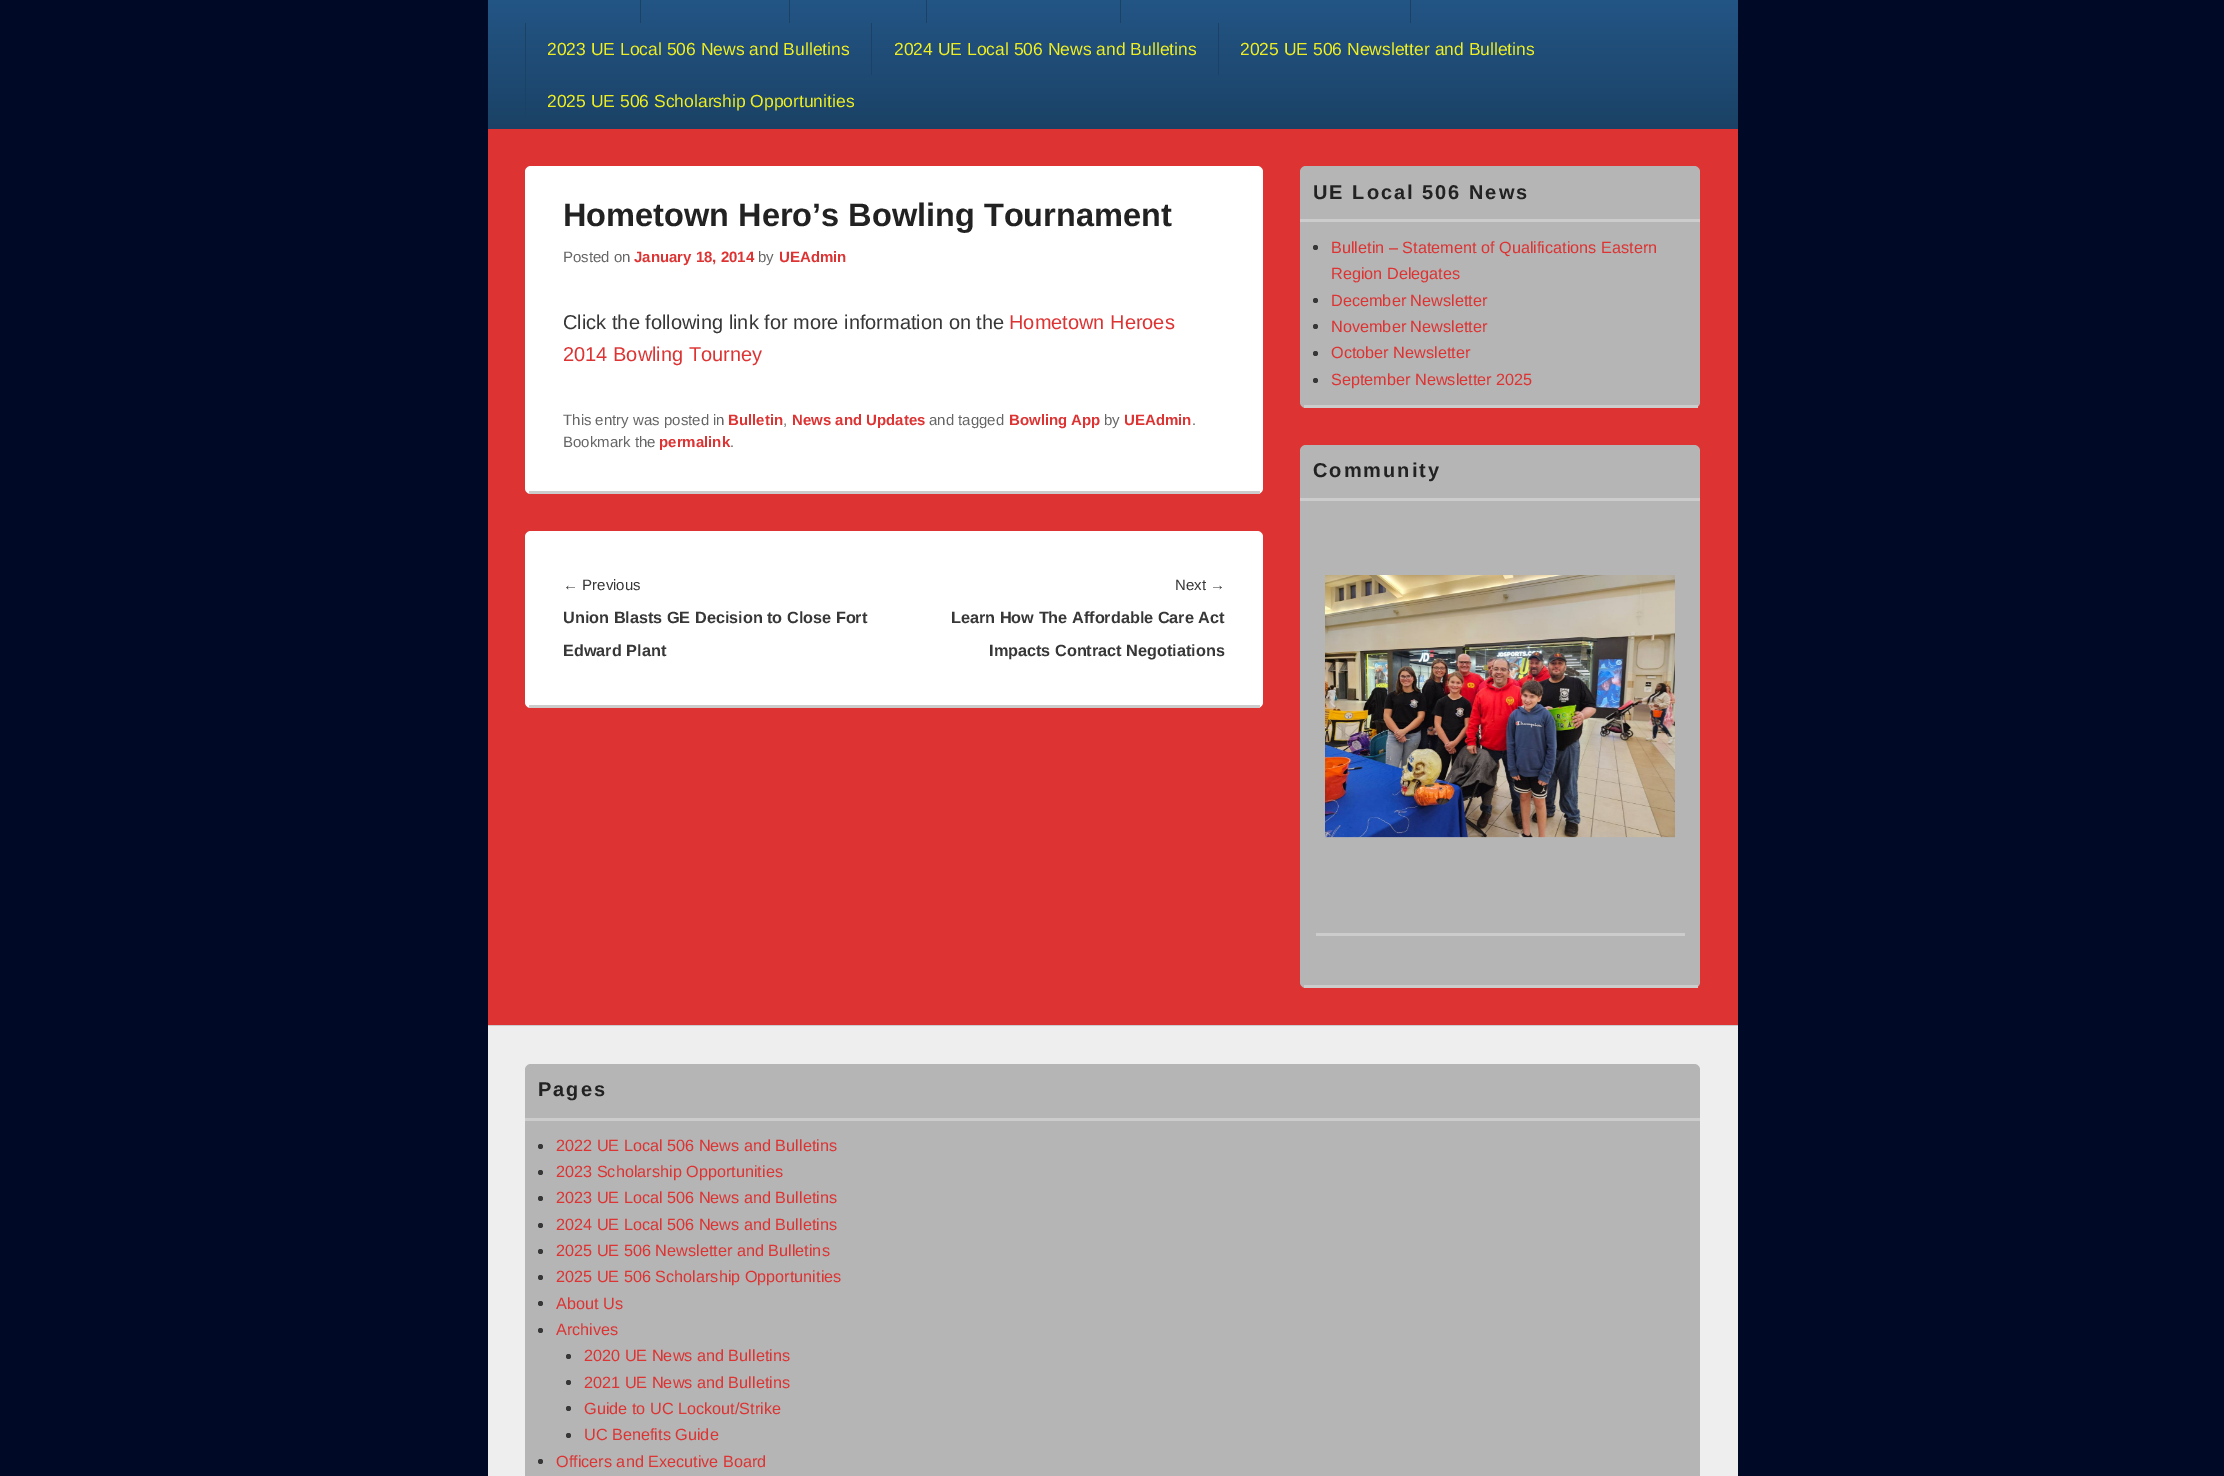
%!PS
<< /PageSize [2224 1476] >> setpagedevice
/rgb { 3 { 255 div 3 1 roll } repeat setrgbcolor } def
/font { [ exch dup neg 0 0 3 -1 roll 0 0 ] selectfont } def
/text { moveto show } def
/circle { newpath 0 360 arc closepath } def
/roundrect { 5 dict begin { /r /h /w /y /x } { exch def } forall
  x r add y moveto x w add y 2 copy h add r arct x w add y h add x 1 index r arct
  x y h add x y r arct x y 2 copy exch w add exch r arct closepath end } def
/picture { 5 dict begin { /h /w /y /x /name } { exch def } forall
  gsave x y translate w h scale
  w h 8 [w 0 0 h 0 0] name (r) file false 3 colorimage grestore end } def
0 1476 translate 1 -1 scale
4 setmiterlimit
0 10 38 rgb
0 0 2224 1476 rectfill
238 238 238 rgb
488 1026 1250 450 rectfill
gsave 488 0 moveto 1250 0 rlineto 0 128 rlineto -1250 0 rlineto closepath clip newpath
<< /ShadingType 2 /ColorSpace /DeviceRGB /Coords [1113 -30 1113 128] /Extend [true true] /Function << /FunctionType 2 /Domain [0 1] /C0 [0.145 0.353 0.549] /C1 [0.106 0.259 0.4] /N 1 >> >> shfill grestore
27 66 102 rgb
488 128 1250 1 rectfill
640 0 1 23 rectfill
789 0 1 23 rectfill
926 0 1 23 rectfill
1120 0 1 23 rectfill
1410 0 1 23 rectfill
525 23 1 95 rectfill
871 23 1 52 rectfill
1218 23 1 52 rectfill
221 51 51 rgb
488 129 1250 896 rectfill
255 255 255 rgb
525 166 738 328 6 roundrect fill
204 204 204 rgb
529 491 731 3 rectfill
255 255 255 rgb
525 531 738 177 6 roundrect fill
204 204 204 rgb
529 705 731 3 rectfill
181 181 181 rgb
1300 166 400 242 6 roundrect fill
204 204 204 rgb
1304 405 394 3 rectfill
1300 219 400 3 rectfill
55 55 55 rgb
1315.5 247.5 2.5 circle fill
1315.5 300.5 2.5 circle fill
1315.5 326.5 2.5 circle fill
1315.5 353.5 2.5 circle fill
1315.5 380.5 2.5 circle fill
181 181 181 rgb
1300 445 400 543 6 roundrect fill
204 204 204 rgb
1304 985 394 3 rectfill
1300 498 400 3 rectfill
1316 933 369 3 rectfill
(img_01.rgb) 1325 575 350 263 picture
488 1025 1250 1 rectfill
181 181 181 rgb
525 1064 1175 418 6 roundrect fill
204 204 204 rgb
525 1118 1175 3 rectfill
55 55 55 rgb
540.5 1146.5 2.5 circle fill
540.5 1172.5 2.5 circle fill
540.5 1198.5 2.5 circle fill
540.5 1225.5 2.5 circle fill
540.5 1251.5 2.5 circle fill
540.5 1277.5 2.5 circle fill
540.5 1303.5 2.5 circle fill
540.5 1330.5 2.5 circle fill
568.5 1356.5 2.5 circle fill
568.5 1382.5 2.5 circle fill
568.5 1408.5 2.5 circle fill
568.5 1435.5 2.5 circle fill
540.5 1461.5 2.5 circle fill
/LiberationSans-Regular 17.5 font
238 238 34 rgb
(2023 UE Local 506 News and Bulletins) 547 55 text
(2024 UE Local 506 News and Bulletins) 894 55 text
(2025 UE 506 Newsletter and Bulletins) 1240 55 text
(2025 UE 506 Scholarship Opportunities) 547 107 text
/LiberationSans-Bold 32.5 font
34 34 34 rgb
(Hometown Hero’s Bowling Tournament) 563 226 text
/LiberationSans-Regular 15 font
102 102 102 rgb
(Posted on) 563 262 text
/LiberationSans-Bold 15 font
221 51 51 rgb
(January 18, 2014) 634 262 text
/LiberationSans-Regular 15 font
102 102 102 rgb
(by) 758 262 text
/LiberationSans-Bold 15 font
221 51 51 rgb
(UEAdmin) 779 262 text
/LiberationSans-Regular 20 font
55 55 55 rgb
(Click the following link for more information on the) 563 329 text
221 51 51 rgb
(Hometown Heroes) 1009 329 text
(2014 Bowling Tourney) 563 361 text
/LiberationSans-Regular 15 font
102 102 102 rgb
(This entry was posted in) 563 425 text
/LiberationSans-Bold 15 font
221 51 51 rgb
(Bulletin) 728 425 text
/LiberationSans-Regular 15 font
102 102 102 rgb
(,) 783 425 text
/LiberationSans-Bold 15 font
221 51 51 rgb
(News and Updates) 792 425 text
/LiberationSans-Regular 15 font
102 102 102 rgb
(and tagged) 929 425 text
/LiberationSans-Bold 15 font
221 51 51 rgb
(Bowling App) 1009 425 text
/LiberationSans-Regular 15 font
102 102 102 rgb
(by) 1104 425 text
/LiberationSans-Bold 15 font
221 51 51 rgb
(UEAdmin) 1124 425 text
/LiberationSans-Regular 15 font
102 102 102 rgb
(.) 1192 425 text
(Bookmark the) 563 447 text
/LiberationSans-Bold 15 font
221 51 51 rgb
(permalink) 659 447 text
/LiberationSans-Regular 15 font
102 102 102 rgb
(.) 730 447 text
55 55 55 rgb
(← Previous) 563 590 text
/LiberationSans-Bold 16.25 font
(Union Blasts GE Decision to Close Fort) 563 623 text
(Edward Plant) 563 656 text
/LiberationSans-Regular 15 font
(Next →) 1175 590 text
/LiberationSans-Bold 16.25 font
(Learn How The Affordable Care Act) 951 623 text
(Impacts Contract Negotiations) 989 656 text
/LiberationSans-Bold 20 font
34 34 34 rgb
1313 199 moveto 2 0 (UE Local 506 News) ashow
/LiberationSans-Regular 16.25 font
221 51 51 rgb
(Bulletin – Statement of Qualifications Eastern) 1331 253 text
(Region Delegates) 1331 279 text
(December Newsletter) 1331 306 text
(November Newsletter) 1331 332 text
(October Newsletter) 1331 358 text
(September Newsletter 2025) 1331 385 text
/LiberationSans-Bold 20 font
34 34 34 rgb
1313 477 moveto 2 0 (Community) ashow
538 1096 moveto 2 0 (Pages) ashow
/LiberationSans-Regular 16.25 font
221 51 51 rgb
(2022 UE Local 506 News and Bulletins) 556 1151 text
(2023 Scholarship Opportunities) 556 1177 text
(2023 UE Local 506 News and Bulletins) 556 1203 text
(2024 UE Local 506 News and Bulletins) 556 1230 text
(2025 UE 506 Newsletter and Bulletins) 556 1256 text
(2025 UE 506 Scholarship Opportunities) 556 1282 text
(About Us) 556 1309 text
(Archives) 556 1335 text
(2020 UE News and Bulletins) 584 1361 text
(2021 UE News and Bulletins) 584 1388 text
(Guide to UC Lockout/Strike) 584 1414 text
(UC Benefits Guide) 584 1440 text
(Officers and Executive Board) 556 1467 text
showpage
